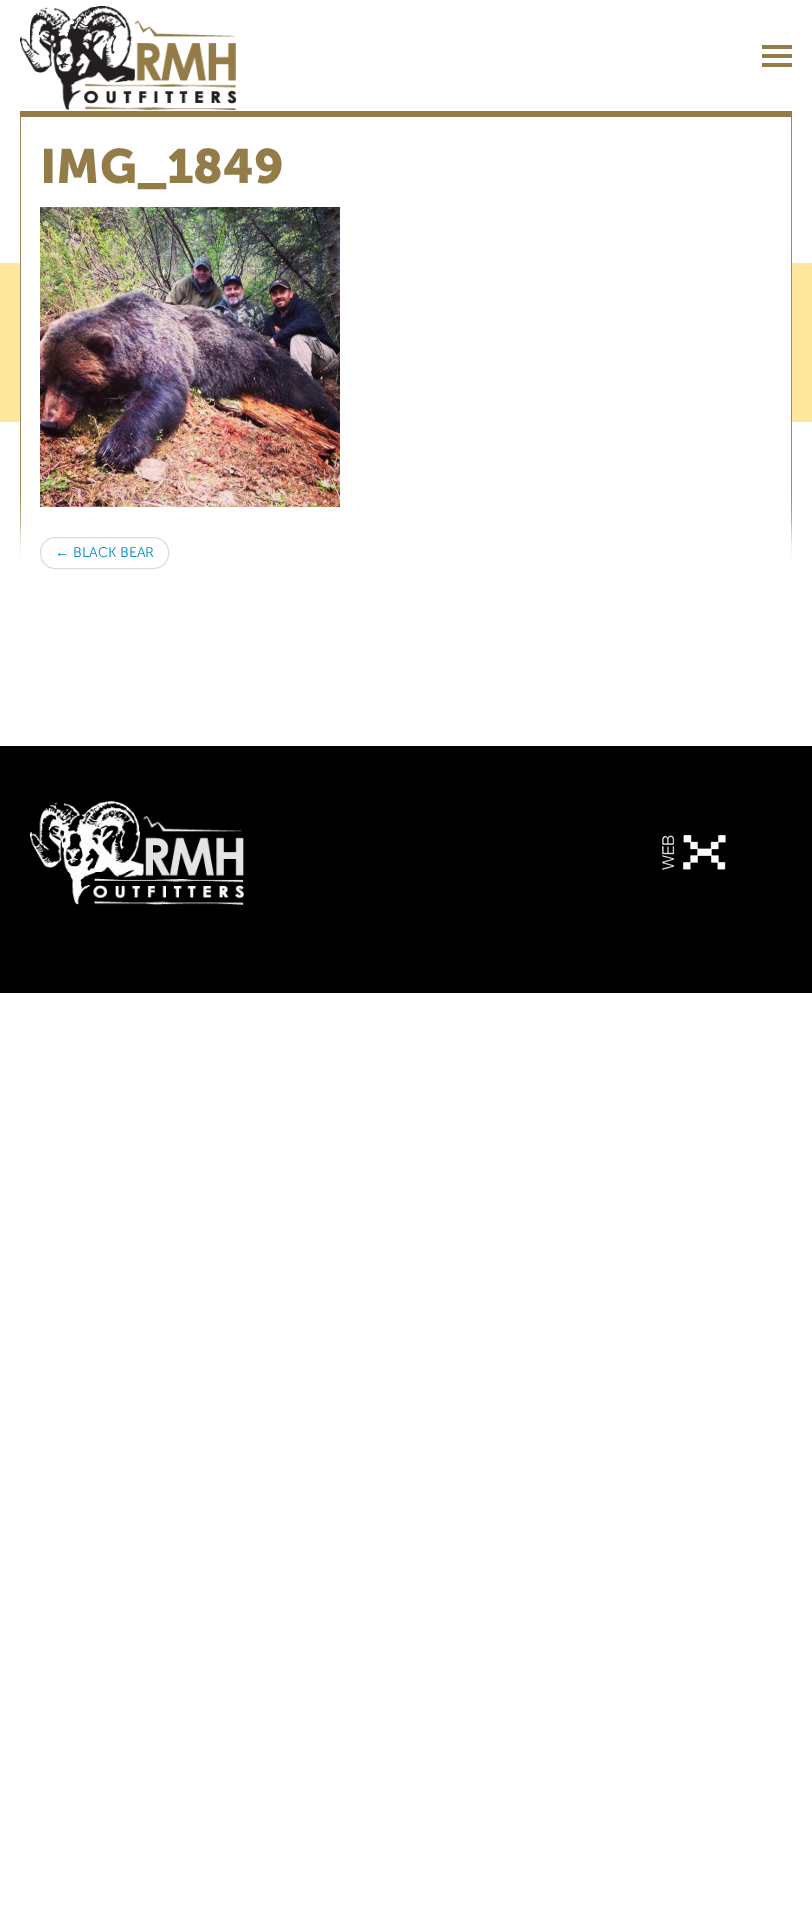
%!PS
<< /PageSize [812 1920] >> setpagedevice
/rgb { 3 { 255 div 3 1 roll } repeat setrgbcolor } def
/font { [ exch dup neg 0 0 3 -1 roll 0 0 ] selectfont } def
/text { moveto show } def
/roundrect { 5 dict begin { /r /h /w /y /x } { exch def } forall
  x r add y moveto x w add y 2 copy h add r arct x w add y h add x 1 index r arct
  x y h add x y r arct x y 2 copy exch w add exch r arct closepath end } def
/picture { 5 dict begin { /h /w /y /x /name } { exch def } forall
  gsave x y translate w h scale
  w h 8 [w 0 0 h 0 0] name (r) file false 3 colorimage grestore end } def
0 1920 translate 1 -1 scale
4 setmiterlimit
255 255 255 rgb
0 0 812 1920 rectfill
255 231 157 rgb
0 263 812 159 rectfill
(img_01.rgb) 20 6 216 105 picture
148 124 72 rgb
762 45 30 4 rectfill
762 54 30 4 rectfill
762 63 30 4 rectfill
255 255 255 rgb
20 263 772 159 rectfill
148 124 72 rgb
20 111 772 6 rectfill
(img_02.rgb) 20 117 1 441 picture
(img_03.rgb) 40 207 300 300 picture
(img_02.rgb) 791 117 1 441 picture
221 221 221 rgb
40.5 537.5 128 31 14.5 roundrect stroke
0 0 0 rgb
0 746 812 247 rectfill
(img_04.rgb) 30 801 214 104 picture
(img_05.rgb) 662 835 64 35 picture
/MuseoSans-Bold 48 font
148 124 72 rgb
(IMG_1849) 40 183 text
/LiberationSerif-Regular 14 font
0 136 204 rgb
(←) 55 557 text
/MuseoSans-Light 14 font
(BLACK BEAR) 73 557 text
showpage
